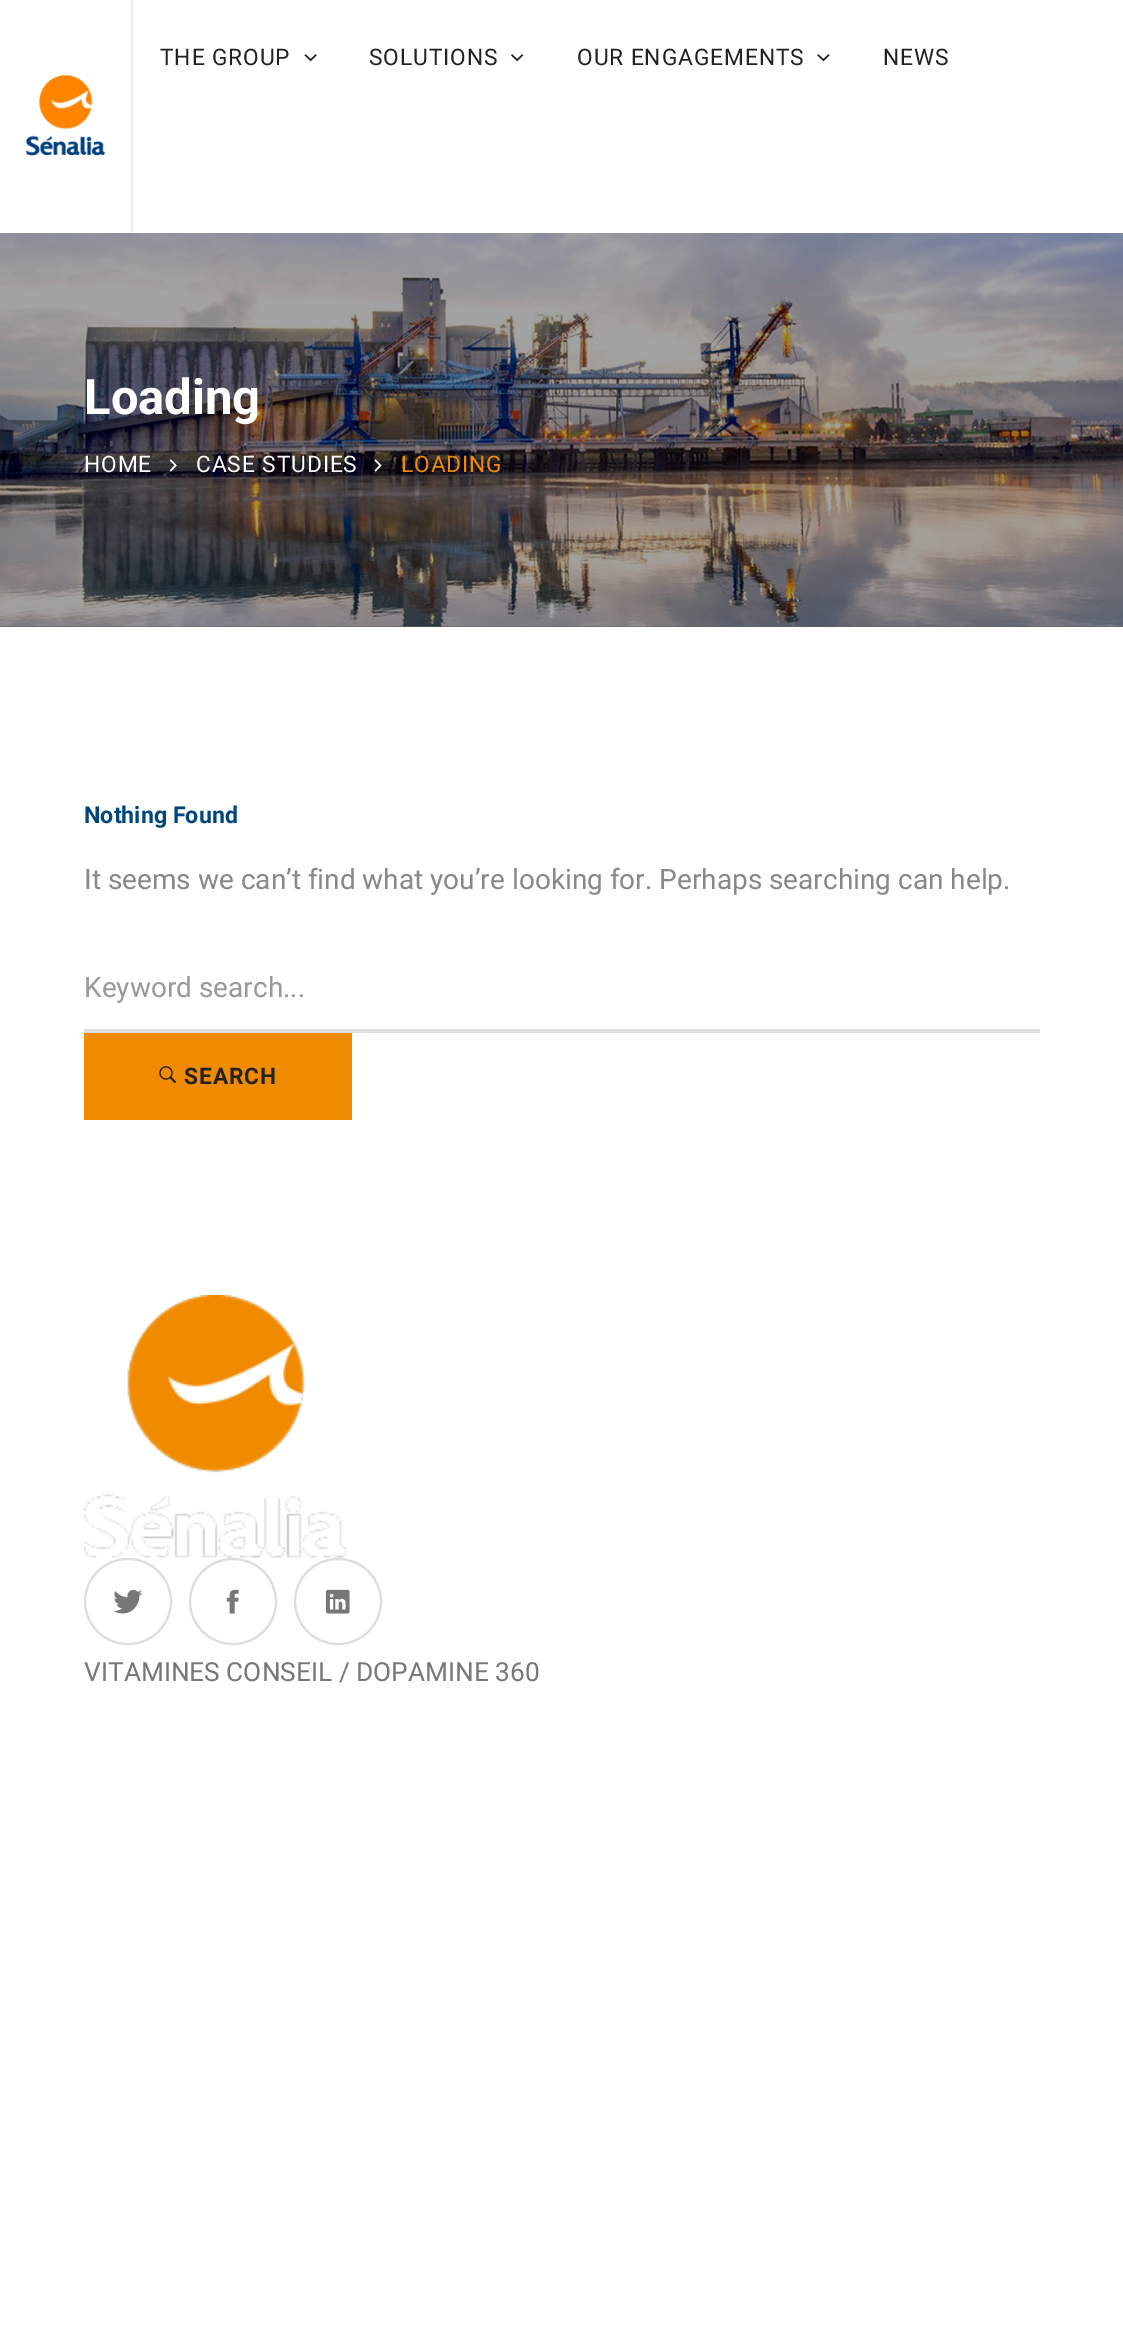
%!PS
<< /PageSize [1123 2351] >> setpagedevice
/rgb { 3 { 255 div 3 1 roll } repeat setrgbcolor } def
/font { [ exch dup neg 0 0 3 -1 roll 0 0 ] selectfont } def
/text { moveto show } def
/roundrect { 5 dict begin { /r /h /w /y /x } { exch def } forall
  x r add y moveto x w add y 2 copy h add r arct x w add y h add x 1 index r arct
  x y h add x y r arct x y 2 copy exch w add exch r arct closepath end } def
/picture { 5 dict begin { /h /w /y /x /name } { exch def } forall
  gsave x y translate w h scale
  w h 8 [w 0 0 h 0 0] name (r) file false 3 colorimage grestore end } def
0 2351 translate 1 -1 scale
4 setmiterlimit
255 255 255 rgb
0 0 1123 2351 rectfill
238 238 238 rgb
131 0 2 233 rectfill
(img_01.rgb) 26 75 79 81 picture
(img_02.rgb) 304 54 13 8 picture
(img_03.rgb) 511 54 13 8 picture
(img_04.rgb) 817 54 13 8 picture
98 98 98 rgb
0 626 1123 1 rectfill
(img_05.rgb) 0 233 1123 394 picture
(img_06.rgb) 169 459 8 13 picture
(img_07.rgb) 374 459 8 13 picture
221 221 221 rgb
84 1029 956 4 rectfill
240 139 0 rgb
84 1033 268 87 rectfill
(img_08.rgb) 159 1066 18 18 picture
(img_09.rgb) 84 1295 263 263 picture
221 221 221 rgb
2 setlinewidth
85 1559 86 85 42.5 roundrect stroke
(img_10.rgb) 113 1589 30 25 picture
190 1559 86 85 42.5 roundrect stroke
(img_11.rgb) 226 1589 13 25 picture
295 1559 86 85 42.5 roundrect stroke
(img_12.rgb) 325 1589 25 25 picture
/Roboto-Regular 22.75 font
34 34 34 rgb
160 65 moveto 0.9 0 (THE GROUP) ashow
369 65 moveto 0.9 0 (SOLUTIONS) ashow
577 65 moveto 0.9 0 (OUR ENGAGEMENTS) ashow
883 65 moveto 0.9 0 (NEWS) ashow
/Roboto-Bold 49 font
255 255 255 rgb
(Loading) 84 414 text
/Roboto-Regular 22.75 font
84 472 moveto 0.9 0 (HOME) ashow
196 472 moveto 0.9 0 (CASE STUDIES) ashow
240 138 1 rgb
401 472 moveto 0.9 0 (LOADING) ashow
/Roboto-Bold 23.25 font
0 69 124 rgb
(Nothing Found) 84 823 text
/Roboto-Regular 28 font
136 136 136 rgb
(It seems we can’t find what you’re looking for. Perhaps searching can help.) 84 889 text
153 153 153 rgb
(Keyword search...) 84 997 text
/Roboto-Bold 22.75 font
34 34 34 rgb
184 1084 moveto 0.9 0 (SEARCH) ashow
/Roboto-Regular 26.25 font
119 119 119 rgb
(VITAMINES CONSEIL / DOPAMINE 360) 84 1681 text
showpage
